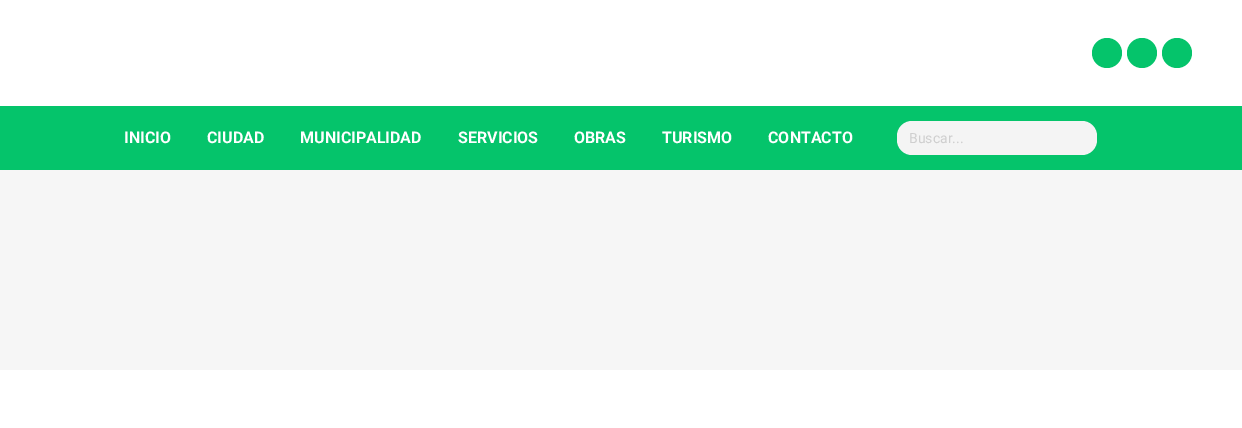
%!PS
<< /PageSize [1242 428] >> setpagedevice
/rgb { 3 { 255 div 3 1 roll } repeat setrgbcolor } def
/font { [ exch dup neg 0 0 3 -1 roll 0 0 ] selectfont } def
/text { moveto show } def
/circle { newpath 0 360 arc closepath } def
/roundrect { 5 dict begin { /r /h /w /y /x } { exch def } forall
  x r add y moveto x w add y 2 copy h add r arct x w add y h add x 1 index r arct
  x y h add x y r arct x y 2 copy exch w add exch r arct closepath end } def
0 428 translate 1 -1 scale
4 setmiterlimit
255 255 255 rgb
0 0 1242 428 rectfill
5 196 107 rgb
1107 53 15 circle fill
1142 53 15 circle fill
1177 53 15 circle fill
0 106 1242 64 rectfill
244 244 244 rgb
897 121 200 34 15 roundrect fill
246 246 246 rgb
0 170 1242 200 rectfill
/Roboto-Bold 16 font
255 255 255 rgb
(INICIO) 124 143 text
(CIUDAD) 207 143 text
(MUNICIPALIDAD) 300 143 text
(SERVICIOS) 458 143 text
(OBRAS) 574 143 text
(TURISMO) 662 143 text
(CONTACTO) 768 143 text
/Roboto-Regular 14 font
207 207 207 rgb
(Buscar...) 909 143 text
showpage
